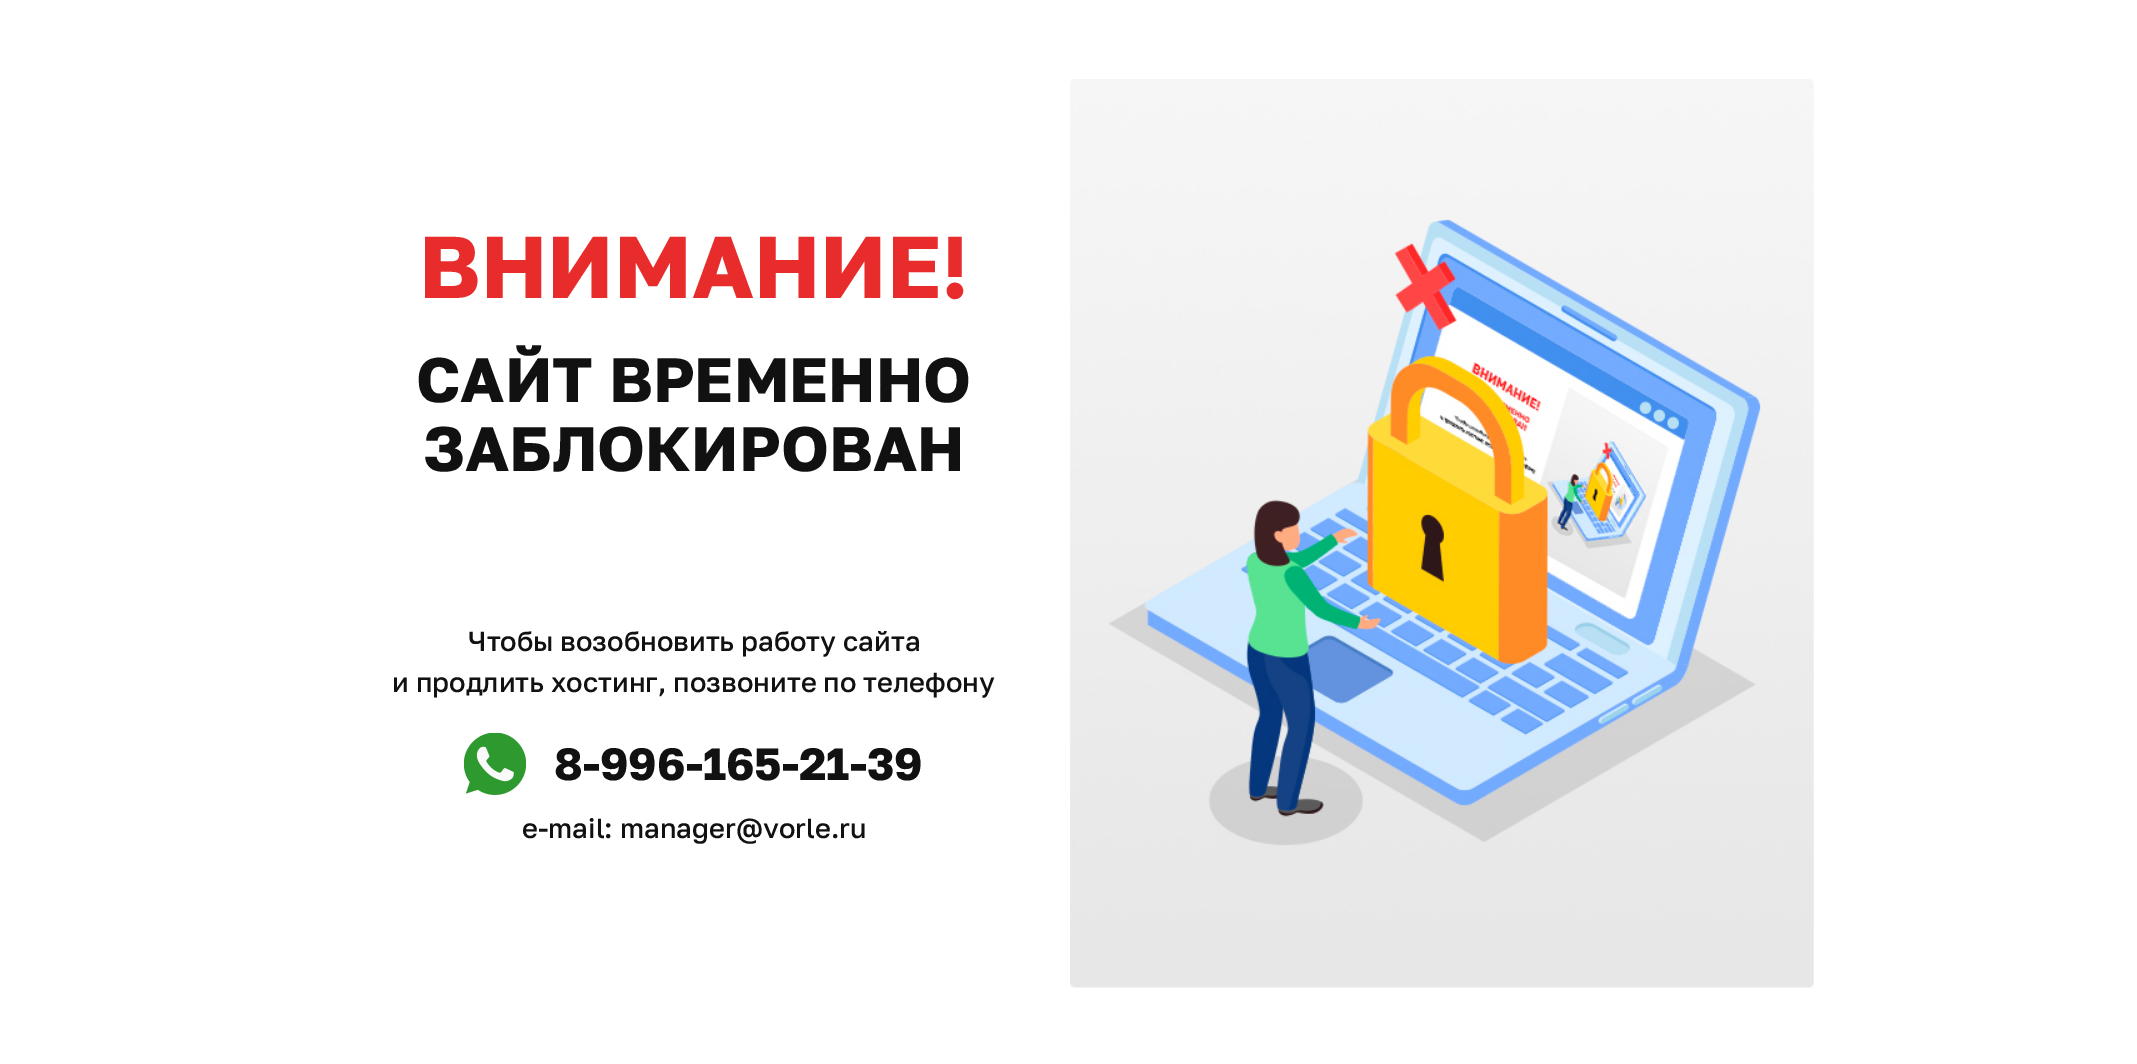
%!PS
<< /PageSize [2137 1064] >> setpagedevice
/rgb { 3 { 255 div 3 1 roll } repeat setrgbcolor } def
/font { [ exch dup neg 0 0 3 -1 roll 0 0 ] selectfont } def
/text { moveto show } def
/picture { 5 dict begin { /h /w /y /x /name } { exch def } forall
  gsave x y translate w h scale
  w h 8 [w 0 0 h 0 0] name (r) file false 3 colorimage grestore end } def
0 1064 translate 1 -1 scale
4 setmiterlimit
255 255 255 rgb
0 0 2137 1064 rectfill
(img_01.rgb) 464 733 62 62 picture
(img_02.rgb) 1070 79 744 909 picture
/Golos-Bold 87.5 font
232 44 44 rgb
(ВНИМАНИЕ!) 419 298 text
/Golos-Bold 62.5 font
17 17 17 rgb
(САЙТ ВРЕМЕННО) 416 402 text
(ЗАБЛОКИРОВАН) 423 471 text
/Golos-Medium 27.5 font
(Чтобы возобновить работу сайта) 468 651 text
(и продлить хостинг, позвоните по телефону) 392 692 text
/Golos-Bold 45 font
(8-996-165-21-39) 554 780 text
/Golos-Medium 27.5 font
(e-mail: manager@vorle.ru) 522 838 text
showpage
